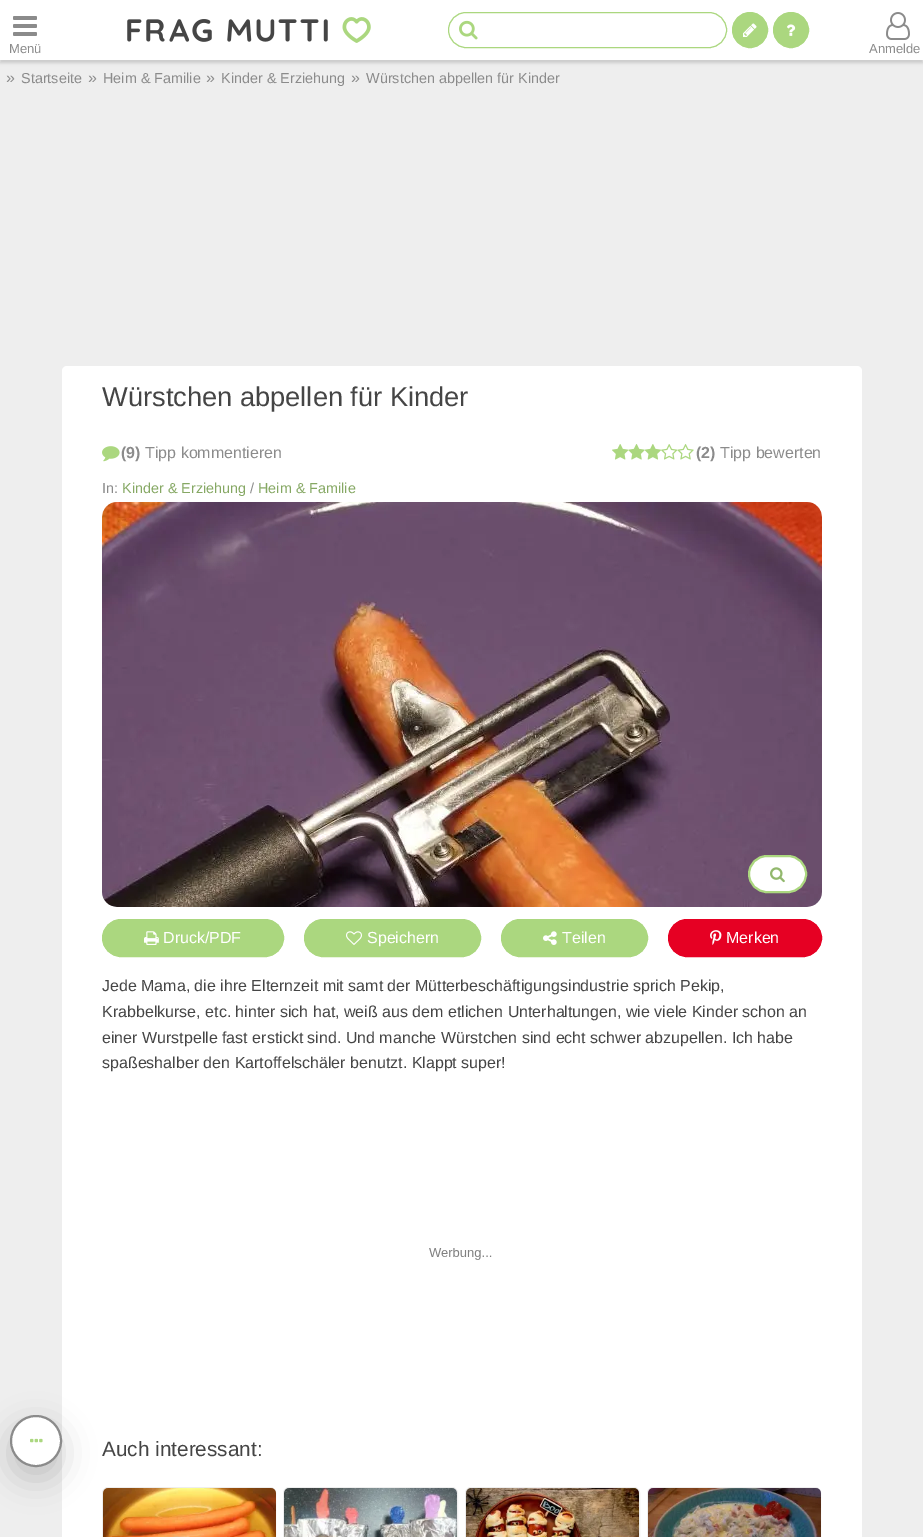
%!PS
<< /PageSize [923 1537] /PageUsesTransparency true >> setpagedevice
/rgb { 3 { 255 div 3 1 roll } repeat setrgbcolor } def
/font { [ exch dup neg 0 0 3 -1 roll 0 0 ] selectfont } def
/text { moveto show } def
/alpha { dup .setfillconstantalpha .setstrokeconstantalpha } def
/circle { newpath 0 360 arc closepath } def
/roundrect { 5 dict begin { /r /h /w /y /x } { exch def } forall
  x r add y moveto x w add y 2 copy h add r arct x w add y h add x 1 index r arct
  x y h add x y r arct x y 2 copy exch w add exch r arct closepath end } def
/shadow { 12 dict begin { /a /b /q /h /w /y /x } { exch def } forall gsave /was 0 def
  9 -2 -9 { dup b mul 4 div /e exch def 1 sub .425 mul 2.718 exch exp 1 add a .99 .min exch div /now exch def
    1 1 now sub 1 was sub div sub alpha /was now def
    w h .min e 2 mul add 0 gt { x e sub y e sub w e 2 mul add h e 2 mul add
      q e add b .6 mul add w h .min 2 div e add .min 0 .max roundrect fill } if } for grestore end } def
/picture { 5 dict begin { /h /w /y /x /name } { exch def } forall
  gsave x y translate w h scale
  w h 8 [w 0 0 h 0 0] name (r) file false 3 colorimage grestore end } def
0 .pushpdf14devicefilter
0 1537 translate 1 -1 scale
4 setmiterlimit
238 238 238 rgb
0 0 923 1537 rectfill
204 204 204 rgb
0 3 923 60 0 1.5 1 shadow
255 255 255 rgb
0 0 923 60 rectfill
(img_01.rgb) 127 17 244 26 picture
171 215 127 rgb
448.5 12.5 278 35 17.5 roundrect stroke
(img_02.rgb) 459 20 19 20 picture
750 30 17.5 circle gsave fill grestore
stroke
(img_03.rgb) 743 23 14 14 picture
791 30 17.5 circle gsave fill grestore
stroke
(img_04.rgb) 787 24 9 12 picture
(img_05.rgb) 13 16 24 20 picture
(img_06.rgb) 886 12 24 28 picture
255 255 255 rgb
62 366 800 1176 5 roundrect fill
238 238 238 rgb
102.5 1487.5 173 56 5.5 roundrect stroke
(img_17.rgb) 103 1488 173 49 picture
0 0 0 rgb
10 1427 52 52 26 16 0.18 shadow
255 255 255 rgb
36 1441 25 circle gsave fill grestore
139 139 139 rgb
2 setlinewidth
stroke
(img_07.rgb) 30 1438 13 5 picture
(img_08.rgb) 102 446 18 16 picture
(img_09.rgb) 612 444 82 16 picture
(img_10.rgb) 102 502 720 405 picture
255 255 255 rgb
749 856 57 36 18 roundrect gsave fill grestore
171 215 127 rgb
stroke
(img_11.rgb) 770 867 15 16 picture
102.5 919.5 181 37 18.5 roundrect gsave fill grestore
1 setlinewidth
stroke
(img_12.rgb) 144 931 15 14 picture
304.5 919.5 176 37 18.5 roundrect gsave fill grestore
stroke
(img_13.rgb) 346 931 16 14 picture
501.5 919.5 146 37 18.5 roundrect gsave fill grestore
stroke
(img_14.rgb) 543 931 14 14 picture
230 0 35 rgb
668.5 919.5 153 37 18.5 roundrect gsave fill grestore
stroke
(img_15.rgb) 710 930 12 15 picture
(img_16.rgb) 429 1248 63 12 picture
238 238 238 rgb
283.5 1487.5 174 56 5.5 roundrect stroke
(img_18.rgb) 284 1488 173 49 picture
465.5 1487.5 174 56 5.5 roundrect stroke
(img_19.rgb) 466 1488 173 49 picture
647.5 1487.5 173 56 5.5 roundrect stroke
(img_20.rgb) 648 1488 173 49 picture
/LiberationSans-Regular 13 font
139 139 139 rgb
(Menü) 9 53 text
(Anmelde) 869 53 text
/LiberationSans-Regular 16 font
(») 6 83 text
/LiberationSans-Regular 14.4 font
(Startseite) 21 83 text
/LiberationSans-Regular 16 font
(») 88 83 text
/LiberationSans-Regular 14.4 font
(Heim & Familie) 103 83 text
/LiberationSans-Regular 16 font
(») 206 83 text
/LiberationSans-Regular 14.4 font
(Kinder & Erziehung) 221 83 text
/LiberationSans-Regular 16 font
(») 351 83 text
/LiberationSans-Regular 14.4 font
(Würstchen abpellen für Kinder) 366 83 text
/LiberationSans-Regular 27.25 font
69 69 69 rgb
(Würstchen abpellen für Kinder) 102 406 text
/LiberationSans-Bold 16 font
139 139 139 rgb
(\(9\)) 121 458 text
/LiberationSans-Regular 16 font
(Tipp kommentieren) 145 458 text
/LiberationSans-Bold 16 font
(\(2\)) 696 458 text
/LiberationSans-Regular 16 font
(Tipp bewerten) 720 458 text
/LiberationSans-Regular 14.4 font
(In:) 102 493 text
134 168 100 rgb
(Kinder & Erziehung) 122 493 text
139 139 139 rgb
(/) 250 493 text
134 168 100 rgb
(Heim & Familie) 258 493 text
/LiberationSans-Regular 16 font
255 255 255 rgb
(Druck/PDF) 163 943 text
(Speichern) 367 943 text
(Teilen) 562 943 text
(Merken) 726 943 text
69 69 69 rgb
(Jede Mama, die ihre Elternzeit mit samt der Mütterbeschäftigungsindustrie sprich Pekip,) 102 991 text
(Krabbelkurse, etc. hinter sich hat, weiß aus dem etlichen Unterhaltungen, wie viele Kinder schon an) 102 1017 text
(einer Wurstpelle fast erstickt sind. Und manche Würstchen sind echt schwer abzupellen. Ich habe) 102 1043 text
(spaßeshalber den Kartoffelschäler benutzt. Klappt super!) 102 1068 text
/LiberationSans-Regular 20.75 font
(Auch interessant:) 102 1456 text
.poppdf14devicefilter showpage
